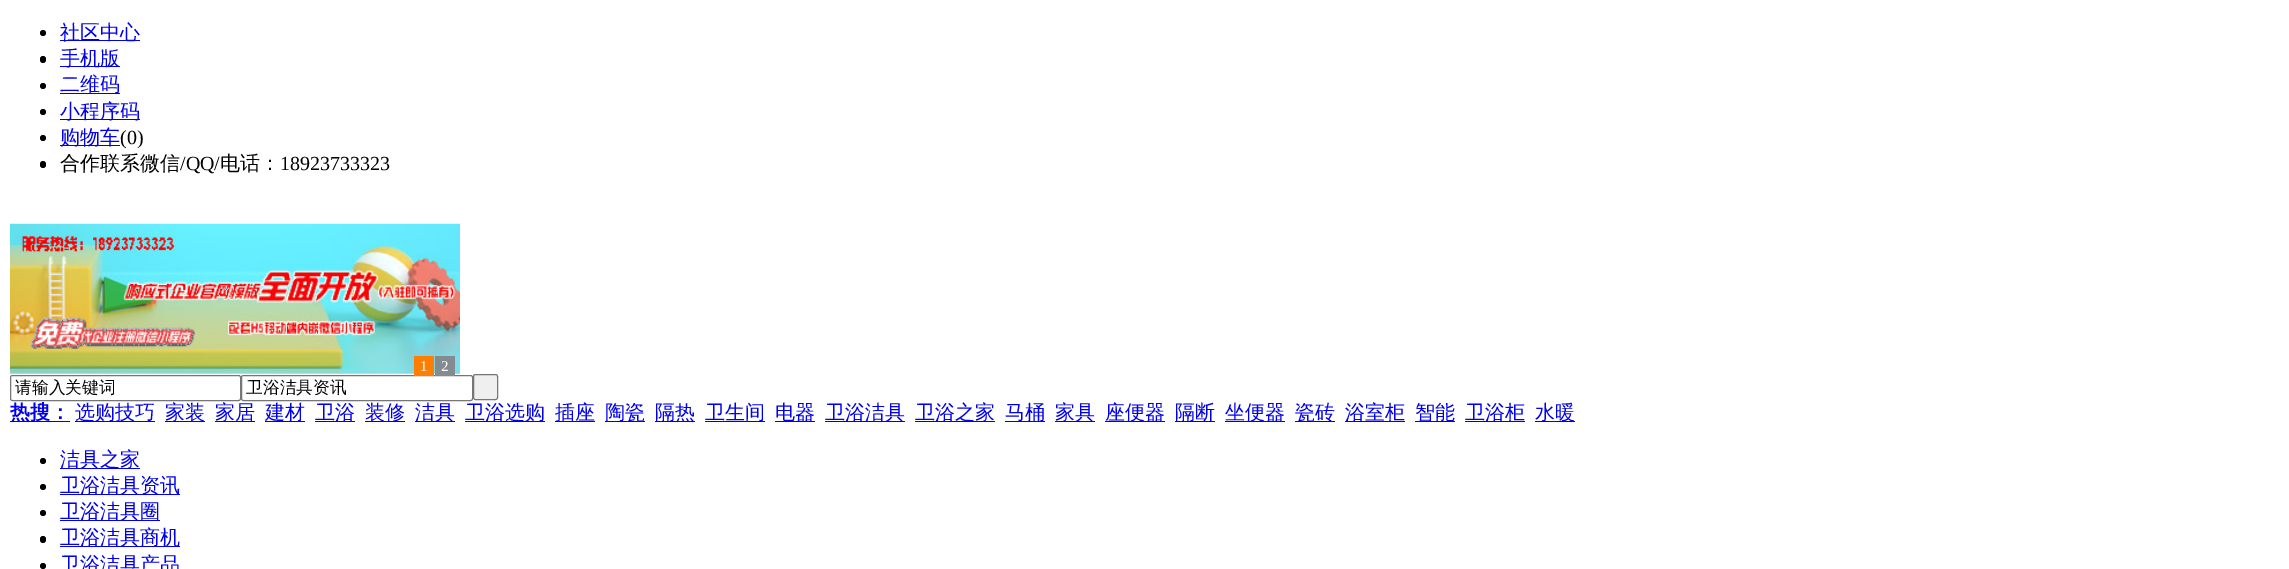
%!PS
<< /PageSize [2289 569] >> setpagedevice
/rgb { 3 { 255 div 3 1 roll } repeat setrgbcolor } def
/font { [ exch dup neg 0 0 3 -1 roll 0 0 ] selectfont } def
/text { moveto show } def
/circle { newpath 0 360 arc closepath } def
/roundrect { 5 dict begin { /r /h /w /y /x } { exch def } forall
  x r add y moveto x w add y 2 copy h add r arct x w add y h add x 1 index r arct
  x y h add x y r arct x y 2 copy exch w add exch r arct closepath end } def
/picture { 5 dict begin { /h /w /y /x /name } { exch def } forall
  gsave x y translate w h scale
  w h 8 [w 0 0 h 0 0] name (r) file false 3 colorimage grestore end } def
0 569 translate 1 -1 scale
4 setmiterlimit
255 255 255 rgb
0 0 2289 569 rectfill
0 0 0 rgb
43 33 3 circle fill
0 0 238 rgb
60 40 80 1 rectfill
0 0 0 rgb
40 56 6 7 3 roundrect fill
0 0 238 rgb
60 66 60 1 rectfill
0 0 0 rgb
43 86 3 circle fill
0 0 238 rgb
60 93 60 1 rectfill
0 0 0 rgb
43 112 3 circle fill
0 0 238 rgb
60 119 80 1 rectfill
0 0 0 rgb
43 138 3 circle fill
0 0 238 rgb
60 145 60 1 rectfill
0 0 0 rgb
40 161 6 7 3 roundrect fill
(img_01.rgb) 10 223 450 151 picture
118 118 118 rgb
241.5 375.5 231 25 2 roundrect stroke
255 126 0 rgb
414 356 20 20 rectfill
131 139 144 rgb
435 356 20 20 rectfill
118 118 118 rgb
10.5 375.5 230 25 2 roundrect stroke
239 239 239 rgb
473.5 374.5 24 25 2 roundrect gsave fill grestore
118 118 118 rgb
stroke
0 0 238 rgb
10 421 60 1 rectfill
75 421 80 1 rectfill
165 421 40 1 rectfill
215 421 40 1 rectfill
265 421 40 1 rectfill
315 421 40 1 rectfill
365 421 40 1 rectfill
415 421 40 1 rectfill
465 421 80 1 rectfill
555 421 40 1 rectfill
605 421 40 1 rectfill
655 421 40 1 rectfill
705 421 60 1 rectfill
775 421 40 1 rectfill
825 421 80 1 rectfill
915 421 80 1 rectfill
1005 421 40 1 rectfill
1055 421 40 1 rectfill
1105 421 60 1 rectfill
1175 421 40 1 rectfill
1225 421 60 1 rectfill
1295 421 40 1 rectfill
1345 421 60 1 rectfill
1415 421 40 1 rectfill
1465 421 60 1 rectfill
1535 421 40 1 rectfill
0 0 0 rgb
43 461 3 circle fill
0 0 238 rgb
60 468 80 1 rectfill
0 0 0 rgb
43 487 3 circle fill
0 0 238 rgb
60 494 120 1 rectfill
0 0 0 rgb
43 513 3 circle fill
0 0 238 rgb
60 520 100 1 rectfill
0 0 0 rgb
40 536 6 7 3 roundrect fill
0 0 238 rgb
60 546 120 1 rectfill
0 0 0 rgb
43 566 3 circle fill
/WenQuanYiZenHei-Medium 20 font
0 0 238 rgb
(社区中心) 60 39 text
(手机版) 60 65 text
(二维码) 60 91 text
(小程序码) 60 118 text
(购物车) 60 144 text
/LiberationSerif-Regular 20 font
0 0 0 rgb
(\(0\)) 120 144 text
/WenQuanYiZenHei-Medium 20 font
(合作联系微信) 60 170 text
/LiberationSerif-Regular 20 font
(/QQ/) 180 170 text
/WenQuanYiZenHei-Medium 20 font
(电话：) 220 170 text
/LiberationSerif-Regular 20 font
(18923733323) 280 170 text
/LiberationSerif-Regular 15 font
255 255 255 rgb
(1) 420 371 text
(2) 441 371 text
/WenQuanYiZenHei-Medium 16.75 font
0 0 0 rgb
(请输入关键词) 15 393 text
(卫浴洁具资讯) 246 393 text
/WenQuanYiZenHei-Bold 20 font
0 0 238 rgb
(热搜：) 10 419 text
/WenQuanYiZenHei-Medium 20 font
(选购技巧) 75 419 text
(家装) 165 419 text
(家居) 215 419 text
(建材) 265 419 text
(卫浴) 315 419 text
(装修) 365 419 text
(洁具) 415 419 text
(卫浴选购) 465 419 text
(插座) 555 419 text
(陶瓷) 605 419 text
(隔热) 655 419 text
(卫生间) 705 419 text
(电器) 775 419 text
(卫浴洁具) 825 419 text
(卫浴之家) 915 419 text
(马桶) 1005 419 text
(家具) 1055 419 text
(座便器) 1105 419 text
(隔断) 1175 419 text
(坐便器) 1225 419 text
(瓷砖) 1295 419 text
(浴室柜) 1345 419 text
(智能) 1415 419 text
(卫浴柜) 1465 419 text
(水暖) 1535 419 text
(洁具之家) 60 466 text
(卫浴洁具资讯) 60 492 text
(卫浴洁具圈) 60 518 text
(卫浴洁具商机) 60 544 text
(卫浴洁具产品) 60 571 text
showpage
